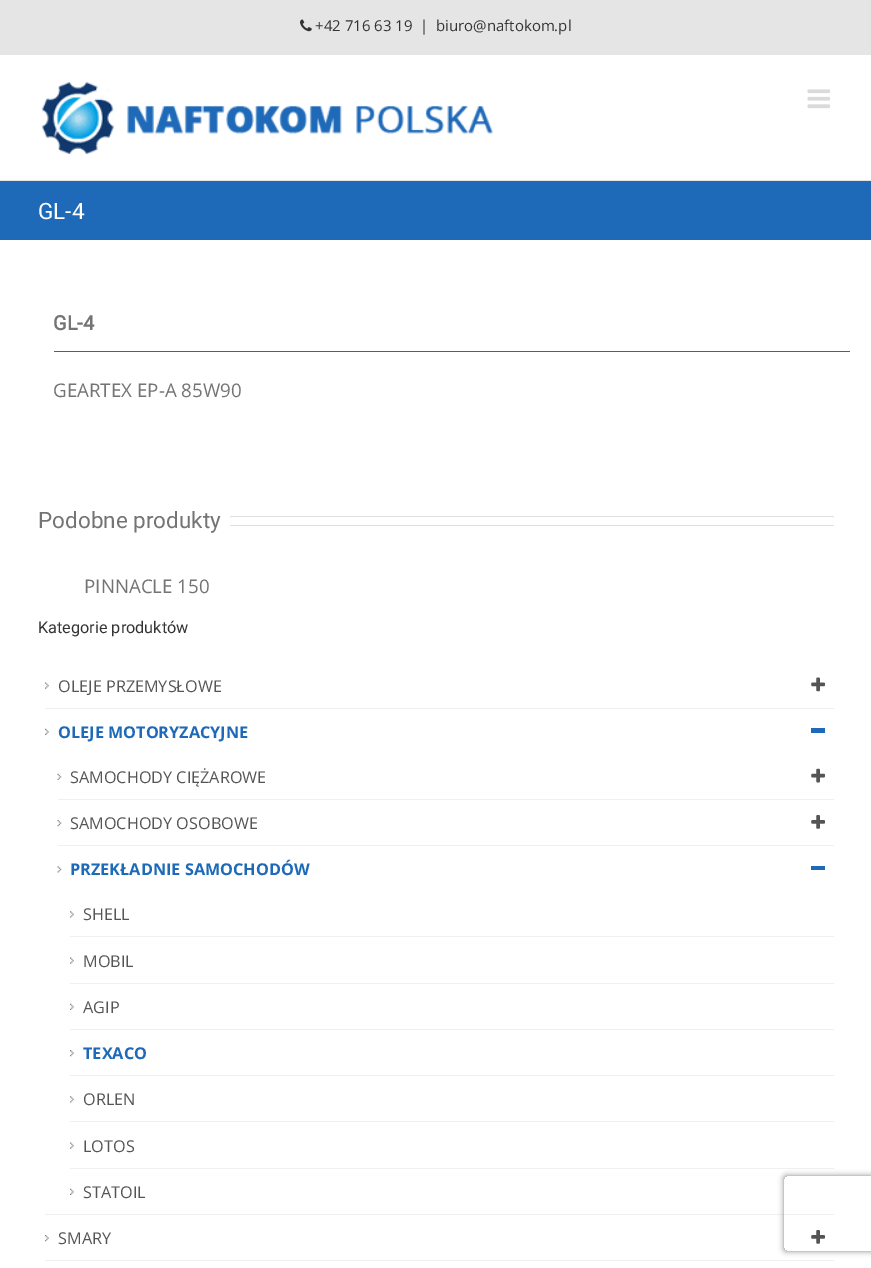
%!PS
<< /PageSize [871 1268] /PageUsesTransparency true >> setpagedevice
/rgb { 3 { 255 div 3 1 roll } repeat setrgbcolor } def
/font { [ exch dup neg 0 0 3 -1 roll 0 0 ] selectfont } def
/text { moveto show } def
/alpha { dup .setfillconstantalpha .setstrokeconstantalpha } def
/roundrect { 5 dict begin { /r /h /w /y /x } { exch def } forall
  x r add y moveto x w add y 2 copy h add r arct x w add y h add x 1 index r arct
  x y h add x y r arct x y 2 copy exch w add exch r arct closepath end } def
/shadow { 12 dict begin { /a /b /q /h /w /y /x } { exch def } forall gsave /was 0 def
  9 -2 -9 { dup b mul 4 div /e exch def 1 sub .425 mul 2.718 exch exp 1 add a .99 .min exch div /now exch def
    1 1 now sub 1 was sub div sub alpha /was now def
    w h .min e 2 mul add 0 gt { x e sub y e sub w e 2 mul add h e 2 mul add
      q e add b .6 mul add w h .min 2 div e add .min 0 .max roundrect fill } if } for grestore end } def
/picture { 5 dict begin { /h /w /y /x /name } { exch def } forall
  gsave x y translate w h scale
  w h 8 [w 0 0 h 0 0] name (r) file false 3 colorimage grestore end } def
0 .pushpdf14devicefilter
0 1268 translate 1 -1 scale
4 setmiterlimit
255 255 255 rgb
0 0 871 1268 rectfill
229 229 229 rgb
0 0 871 55 rectfill
(img_01.rgb) 300 19 12 13 picture
0 180 871 1 rectfill
(img_02.rgb) 42 82 451 72 picture
(img_03.rgb) 807 89 23 20 picture
30 106 184 rgb
0 181 871 59 rectfill
54 351 796 1 rectfill
224 222 222 rgb
230 516 604 1 rectfill
230 525 604 1 rectfill
(img_04.rgb) 45 682 4 7 picture
240 240 240 rgb
45 708 789 1 rectfill
(img_05.rgb) 811 677 14 15 picture
(img_06.rgb) 45 728 4 7 picture
45 1214 789 1 rectfill
30 106 184 rgb
811 728 14 5 rectfill
(img_07.rgb) 57 773 5 7 picture
240 240 240 rgb
58 799 776 1 rectfill
(img_08.rgb) 811 768 14 15 picture
(img_09.rgb) 57 820 5 7 picture
58 845 776 1 rectfill
(img_10.rgb) 811 815 14 14 picture
(img_11.rgb) 57 866 5 7 picture
30 106 184 rgb
811 866 14 4 rectfill
(img_12.rgb) 70 911 4 7 picture
240 240 240 rgb
70 936 764 1 rectfill
(img_04.rgb) 70 957 4 7 picture
70 983 764 1 rectfill
(img_06.rgb) 70 1003 4 7 picture
70 1029 764 1 rectfill
(img_13.rgb) 70 1050 4 7 picture
70 1075 764 1 rectfill
(img_12.rgb) 70 1096 4 7 picture
70 1121 764 1 rectfill
(img_04.rgb) 70 1142 4 7 picture
70 1168 764 1 rectfill
(img_06.rgb) 70 1188 4 7 picture
(img_13.rgb) 45 1235 4 7 picture
45 1260 789 1 rectfill
(img_10.rgb) 811 1230 14 14 picture
gsave
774 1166 moveto 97 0 rlineto 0 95 rlineto -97 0 rlineto closepath 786.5 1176 moveto 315 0 rlineto 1.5 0 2.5 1 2.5 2.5 rcurveto 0 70 rlineto 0 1.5 -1 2.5 -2.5 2.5 rcurveto -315 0 rlineto -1.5 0 -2.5 -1 -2.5 -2.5 rcurveto 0 -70 rlineto 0 -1.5 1 -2.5 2.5 -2.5 rcurveto closepath eoclip newpath
128 128 128 rgb
784 1176 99 75 2.5 3 1 shadow
grestore
/OpenSans-Regular 15 font
51 51 51 rgb
(+42 716 63 19) 315 31 text
(|) 420 31 text
(biuro@naftokom.pl) 436 31 text
/Roboto-Regular 22.5 font
255 255 255 rgb
(GL-4) 38 219 text
/Roboto-Bold 20 font
116 116 116 rgb
(GL-4) 53 330 text
/OpenSans-Regular 18.75 font
(GEARTEX EP-A 85W90) 53 397 text
/Roboto-Regular 22.5 font
(Podobne produkty) 38 528 text
/OpenSans-Regular 18.75 font
(PINNACLE 150) 84 593 text
/Roboto-Regular 16.25 font
51 51 51 rgb
(Kategorie produktów) 38 633 text
/OpenSans-Regular 16.25 font
85 85 85 rgb
(OLEJE PRZEMYSŁOWE) 58 692 text
/OpenSans-Bold 16.25 font
30 106 184 rgb
(OLEJE MOTORYZACYJNE) 58 738 text
/OpenSans-Regular 16.25 font
85 85 85 rgb
(SAMOCHODY CIĘŻAROWE) 70 783 text
(SAMOCHODY OSOBOWE) 70 829 text
/OpenSans-Bold 16.25 font
30 106 184 rgb
(PRZEKŁADNIE SAMOCHODÓW) 70 875 text
/OpenSans-Regular 16.25 font
85 85 85 rgb
(SHELL) 83 920 text
(MOBIL) 83 967 text
(AGIP) 83 1013 text
/OpenSans-Bold 16.25 font
30 106 184 rgb
(TEXACO) 83 1059 text
/OpenSans-Regular 16.25 font
85 85 85 rgb
(ORLEN) 83 1105 text
(LOTOS) 83 1152 text
(STATOIL) 83 1198 text
(SMARY) 58 1244 text
.poppdf14devicefilter showpage
